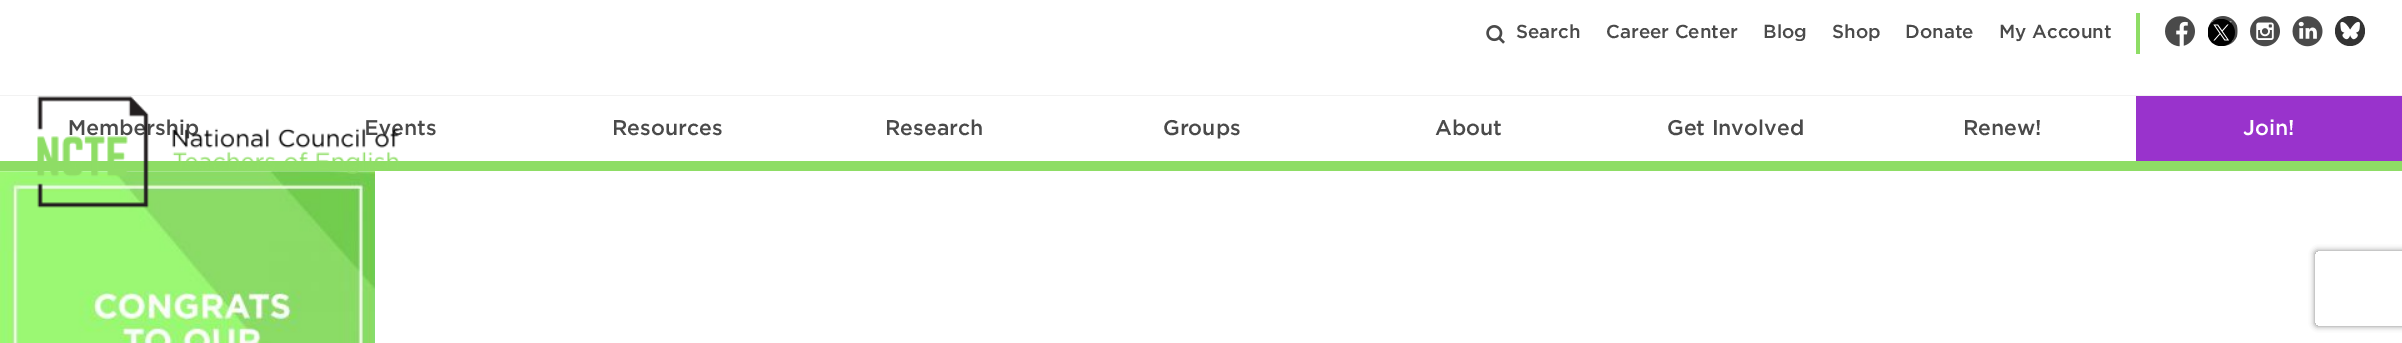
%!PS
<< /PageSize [2402 343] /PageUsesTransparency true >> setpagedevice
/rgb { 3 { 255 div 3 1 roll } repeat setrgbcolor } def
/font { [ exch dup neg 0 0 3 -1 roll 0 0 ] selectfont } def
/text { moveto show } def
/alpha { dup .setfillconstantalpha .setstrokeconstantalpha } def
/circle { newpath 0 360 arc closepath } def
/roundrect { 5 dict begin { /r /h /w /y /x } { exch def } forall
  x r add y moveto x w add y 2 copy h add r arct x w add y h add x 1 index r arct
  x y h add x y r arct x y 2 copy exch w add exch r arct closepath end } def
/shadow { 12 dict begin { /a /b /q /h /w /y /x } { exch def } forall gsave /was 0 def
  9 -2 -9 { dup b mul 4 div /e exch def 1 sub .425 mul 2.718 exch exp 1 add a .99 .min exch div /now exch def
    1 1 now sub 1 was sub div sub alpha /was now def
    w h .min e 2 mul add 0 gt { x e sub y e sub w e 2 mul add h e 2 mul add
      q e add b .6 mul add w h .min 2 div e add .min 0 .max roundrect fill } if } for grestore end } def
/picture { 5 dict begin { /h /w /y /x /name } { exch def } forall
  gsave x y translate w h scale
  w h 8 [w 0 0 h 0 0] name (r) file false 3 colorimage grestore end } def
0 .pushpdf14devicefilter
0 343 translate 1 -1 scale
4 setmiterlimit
255 255 255 rgb
0 0 2402 343 rectfill
142 221 101 rgb
0 161 2402 10 rectfill
2136 13 4 41 rectfill
(img_01.rgb) 1486 25 19 19 picture
(img_02.rgb) 2165 16 30 31 picture
(img_03.rgb) 2208 16 30 30 picture
(img_04.rgb) 2208 19 27 27 picture
(img_05.rgb) 2250 16 30 31 picture
(img_06.rgb) 2292 16 31 31 picture
51 51 51 rgb
2350 31 15 circle fill
(img_07.rgb) 2340 21 20 19 picture
242 242 242 rgb
0 95 2402 1 rectfill
153 51 204 rgb
2136 96 266 65 rectfill
(img_09.rgb) 0 171 375 172 picture
gsave
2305 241 moveto 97 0 rlineto 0 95 rlineto -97 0 rlineto closepath 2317.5 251 moveto 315 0 rlineto 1.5 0 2.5 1 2.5 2.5 rcurveto 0 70 rlineto 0 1.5 -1 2.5 -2.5 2.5 rcurveto -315 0 rlineto -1.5 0 -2.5 -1 -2.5 -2.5 rcurveto 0 -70 rlineto 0 -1.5 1 -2.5 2.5 -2.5 rcurveto closepath eoclip newpath
128 128 128 rgb
2315 251 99 75 2.5 3 1 shadow
grestore
/Gotham-Medium 18.75 font
74 74 74 rgb
(Search) 1516 38 text
(Career Center) 1606 38 text
(Blog) 1763 38 text
(Shop) 1832 38 text
(Donate) 1905 38 text
(My Account) 1999 38 text
/Gotham-Medium 21.25 font
(Membership) 68 135 text
(Events) 364 135 text
(img_08.rgb) 37 96 362 112 picture
(Resources) 612 135 text
(Research) 885 135 text
(Groups) 1163 135 text
(About) 1435 135 text
(Get Involved) 1667 135 text
(Renew!) 1963 135 text
255 255 255 rgb
(Join!) 2243 135 text
.poppdf14devicefilter showpage
